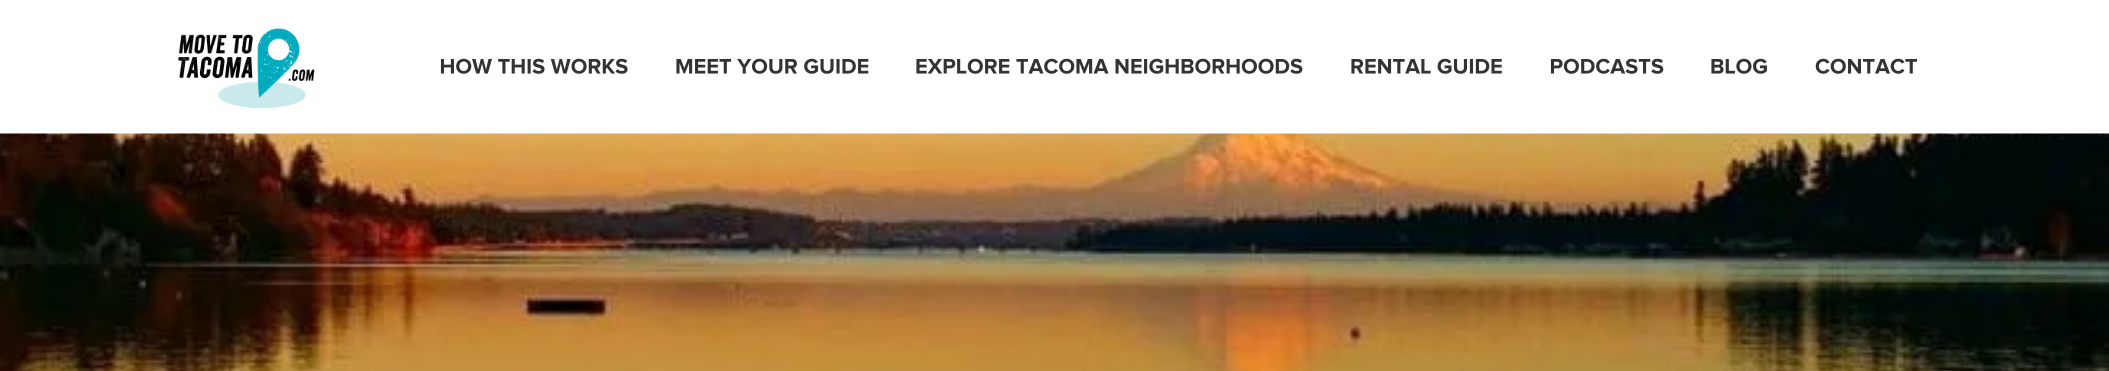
%!PS
<< /PageSize [2109 371] >> setpagedevice
/rgb { 3 { 255 div 3 1 roll } repeat setrgbcolor } def
/picture { 5 dict begin { /h /w /y /x /name } { exch def } forall
  gsave x y translate w h scale
  w h 8 [w 0 0 h 0 0] name (r) file false 3 colorimage grestore end } def
0 371 translate 1 -1 scale
4 setmiterlimit
255 255 255 rgb
0 0 2109 371 rectfill
(img_01.rgb) 178 28 137 81 picture
(img_02.rgb) 440 58 188 16 picture
(img_03.rgb) 676 58 193 16 picture
(img_04.rgb) 916 58 387 16 picture
(img_05.rgb) 1351 58 151 16 picture
(img_06.rgb) 1550 58 114 16 picture
(img_07.rgb) 1711 58 56 16 picture
(img_08.rgb) 1815 58 103 16 picture
(img_09.rgb) 0 133 2109 238 picture
showpage
